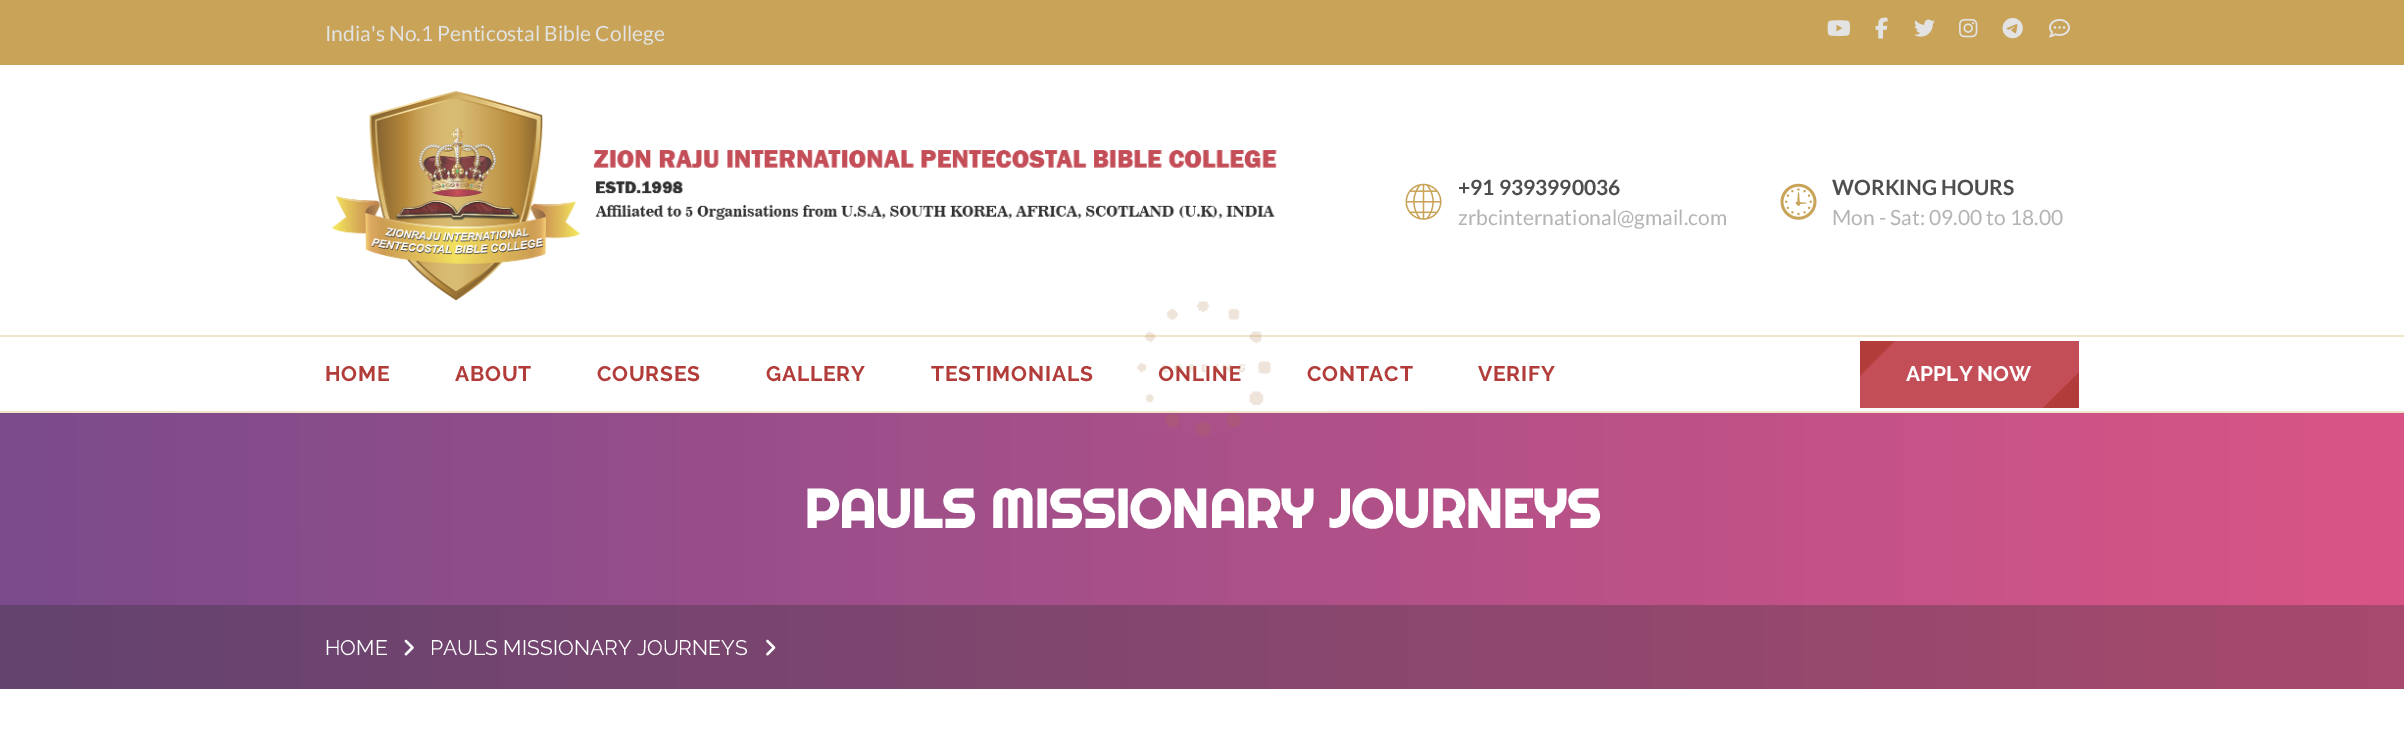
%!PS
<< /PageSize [2404 735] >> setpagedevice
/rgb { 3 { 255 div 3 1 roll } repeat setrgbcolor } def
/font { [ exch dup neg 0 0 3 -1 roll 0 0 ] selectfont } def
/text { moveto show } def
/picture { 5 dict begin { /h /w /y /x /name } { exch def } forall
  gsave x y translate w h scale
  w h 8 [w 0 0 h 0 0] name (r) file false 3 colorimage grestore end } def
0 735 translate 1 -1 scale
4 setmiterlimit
255 255 255 rgb
0 0 2404 735 rectfill
200 163 88 rgb
0 0 2404 65 rectfill
(img_01.rgb) 1827 20 23 16 picture
(img_02.rgb) 1875 17 13 22 picture
(img_03.rgb) 1914 19 21 18 picture
(img_04.rgb) 1959 18 19 20 picture
(img_05.rgb) 2002 17 21 22 picture
(img_06.rgb) 2049 18 21 20 picture
(img_07.rgb) 331 91 946 210 picture
(img_08.rgb) 1405 183 37 37 picture
(img_09.rgb) 1780 183 37 37 picture
240 229 202 rgb
0 335 2404 2 rectfill
0 411 2404 2 rectfill
177 60 58 rgb
1860 341 219 67 rectfill
gsave
1860 341 219 67 rectclip
196 78 87 rgb
1838 398 moveto 155 -155 rlineto 107 108 rlineto -155 154 rlineto closepath fill
grestore
gsave 0 413 moveto 2404 0 rlineto 0 192 rlineto -2404 0 rlineto closepath clip newpath
<< /ShadingType 2 /ColorSpace /DeviceRGB /Coords [0 551 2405 550] /Extend [true true] /Function << /FunctionType 2 /Domain [0 1] /C0 [0.482 0.294 0.549] /C1 [0.855 0.333 0.525] /N 1 >> >> shfill grestore
gsave 0 605 moveto 2404 0 rlineto 0 84 rlineto -2404 0 rlineto closepath clip newpath
<< /ShadingType 2 /ColorSpace /DeviceRGB /Coords [0 551 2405 550] /Extend [true true] /Function << /FunctionType 2 /Domain [0 1] /C0 [0.392 0.263 0.439] /C1 [0.655 0.29 0.424] /N 1 >> >> shfill grestore
(img_11.rgb) 404 639 10 17 picture
(img_12.rgb) 766 639 10 17 picture
/Lato-Regular 21 font
227 227 227 rgb
(India's No.1 Penticostal Bible College) 325 41 text
/Lato-Bold 21 font
78 78 78 rgb
(+91 9393990036) 1458 195 text
/Lato-Regular 21 font
180 180 180 rgb
(zrbcinternational@gmail.com) 1458 225 text
/Lato-Bold 21 font
78 78 78 rgb
(WORKING HOURS) 1832 195 text
/Lato-Regular 21 font
180 180 180 rgb
(Mon - Sat: 09.00 to 18.00) 1832 225 text
/Raleway-Bold 21 font
177 60 58 rgb
325 381 moveto 0.8 0 (HOME) ashow
455 381 moveto 0.8 0 (ABOUT) ashow
597 381 moveto 0.8 0 (COURSES) ashow
766 381 moveto 0.8 0 (GALLERY) ashow
931 381 moveto 0.8 0 (TESTIMONIALS) ashow
1158 381 moveto 0.8 0 (ONLINE) ashow
(img_10.rgb) 1136 301 135 136 picture
1307 381 moveto 0.8 0 (CONTACT) ashow
1478 381 moveto 0.8 0 (VERIFY) ashow
255 255 255 rgb
(APPLY NOW) 1906 381 text
/Righteous-Bold 54 font
(PAULS MISSIONARY JOURNEYS) 804 528 text
/Raleway-Regular 21 font
(HOME) 325 655 text
(PAULS MISSIONARY JOURNEYS) 430 655 text
showpage
